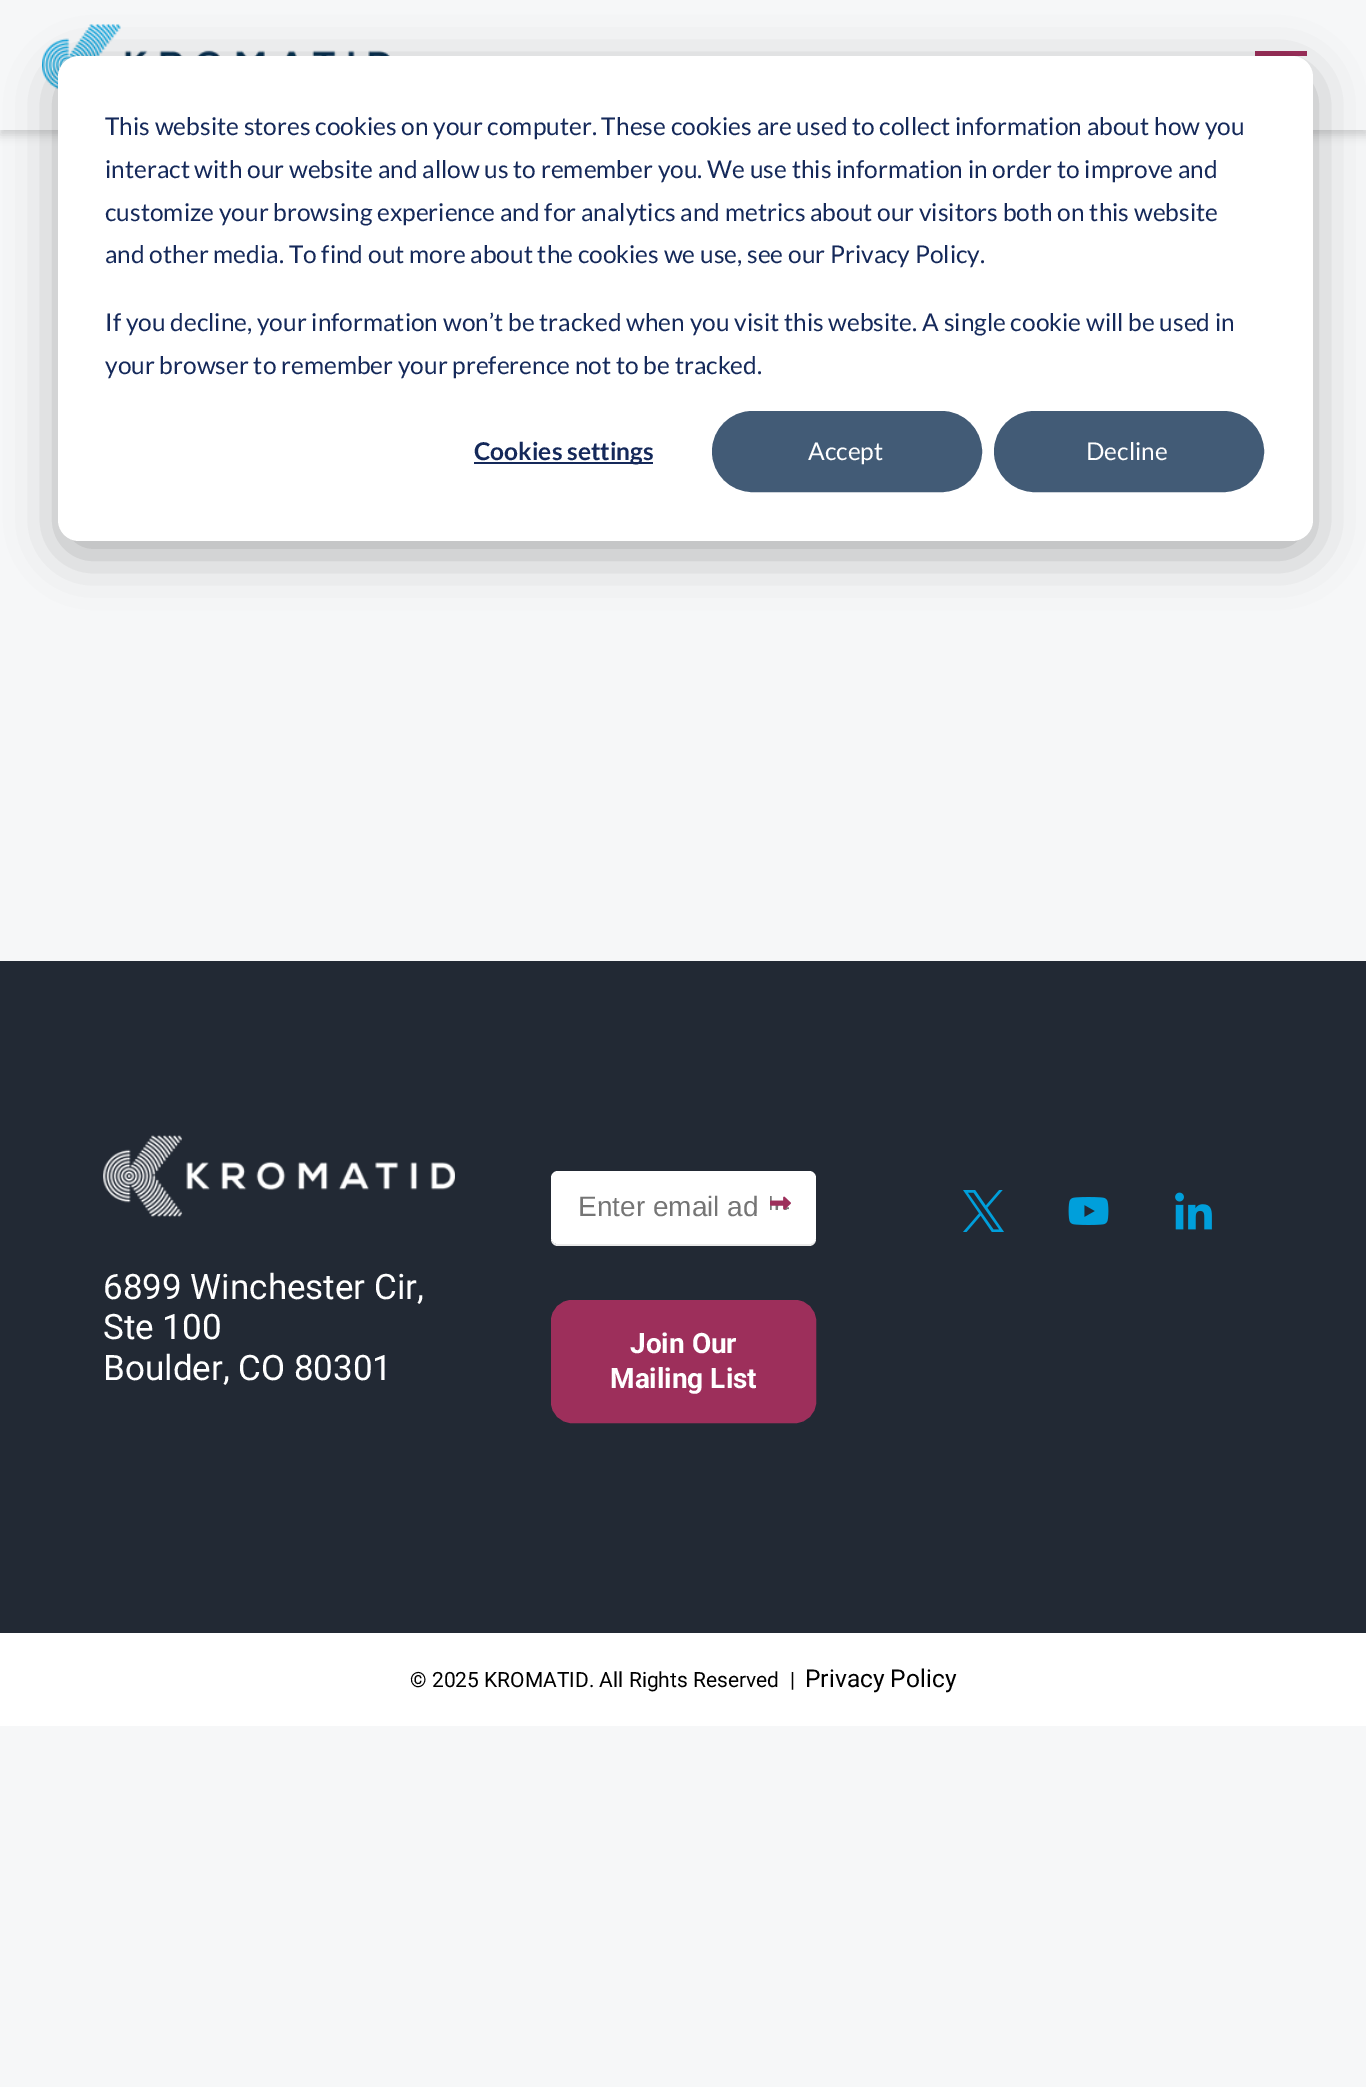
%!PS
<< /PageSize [1366 2087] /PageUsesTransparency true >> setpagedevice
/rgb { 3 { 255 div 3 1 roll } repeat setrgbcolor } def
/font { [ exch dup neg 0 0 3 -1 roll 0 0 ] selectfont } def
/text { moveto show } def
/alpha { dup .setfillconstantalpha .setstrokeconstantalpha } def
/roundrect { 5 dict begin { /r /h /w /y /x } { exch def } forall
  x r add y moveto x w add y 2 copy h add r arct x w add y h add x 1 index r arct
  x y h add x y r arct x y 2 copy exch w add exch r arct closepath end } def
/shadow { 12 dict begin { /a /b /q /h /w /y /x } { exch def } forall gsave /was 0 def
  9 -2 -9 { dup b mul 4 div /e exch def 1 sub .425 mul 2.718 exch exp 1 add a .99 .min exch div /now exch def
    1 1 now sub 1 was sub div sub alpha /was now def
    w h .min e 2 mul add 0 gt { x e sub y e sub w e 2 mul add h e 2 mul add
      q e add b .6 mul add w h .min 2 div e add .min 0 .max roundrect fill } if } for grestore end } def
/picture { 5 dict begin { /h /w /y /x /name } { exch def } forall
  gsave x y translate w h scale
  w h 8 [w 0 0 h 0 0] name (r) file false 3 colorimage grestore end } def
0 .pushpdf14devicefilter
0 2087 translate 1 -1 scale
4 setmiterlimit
246 247 248 rgb
0 0 1366 2087 rectfill
gsave
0 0 moveto 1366 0 rlineto 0 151 rlineto -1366 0 rlineto closepath 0 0 moveto 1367 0 rlineto 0 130 rlineto -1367 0 rlineto closepath eoclip newpath
0 0 0 rgb
0 5 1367 130 0 5 0.16 shadow
grestore
(img_01.rgb) 42 24 348 66 picture
157 47 91 rgb
1255 51 52 5 rectfill
0 0 0 rgb
58 70 1255 485 21 24.5 0.28 shadow
255 255 255 rgb
58 56 1255 485 21 roundrect fill
21 41 90 rgb
474 462 179 2 rectfill
66 91 118 rgb
713 412 268 79 39.5 roundrect gsave fill grestore
2 setlinewidth
stroke
995 412 268 79 39.5 roundrect gsave fill grestore
stroke
34 41 52 rgb
0 961 1366 672 rectfill
(img_02.rgb) 103 1135 352 82 picture
234 234 234 rgb
551 1178 moveto 0 61 rlineto 0 4 3 7 7 7 rcurveto 251 0 rlineto 4 0 7 -3 7 -7 rcurveto 0 -59 rlineto -1 -3 rlineto 1 60 rlineto 0 4 -4 7 -8 7 rcurveto -250 0 rlineto -4 0 -7 -3 -7 -7 rcurveto closepath fill
255 255 255 rgb
551 1171 265 73 7 roundrect fill
(img_03.rgb) 770 1196 21 14 picture
157 47 91 rgb
553.5 1302.5 260 118 18.5 roundrect gsave fill grestore
5 setlinewidth
stroke
(img_04.rgb) 963 1190 41 42 picture
(img_05.rgb) 1068 1197 41 28 picture
(img_06.rgb) 1175 1192 37 38 picture
255 255 255 rgb
0 1633 1366 93 rectfill
/Lato-Regular 24.5 font
21 41 90 rgb
(This website stores cookies on your computer. These cookies are used to collect information about how you) 105 135 text
(interact with our website and allow us to remember you. We use this information in order to improve and) 105 178 text
(customize your browsing experience and for analytics and metrics about our visitors both on this website) 105 221 text
(and other media. To find out more about the cookies we use, see our Privacy Policy.) 105 263 text
(If you decline, your information won’t be tracked when you visit this website. A single cookie will be used in) 105 331 text
(your browser to remember your preference not to be tracked.) 105 374 text
/Lato-Bold 24.5 font
(Cookies settings) 474 460 text
/Lato-Regular 24.5 font
255 255 255 rgb
(Accept) 808 460 text
(Decline) 1086 460 text
/Roboto-Regular 35 font
(6899 Winchester Cir,) 103 1299 text
(Ste 100) 103 1339 text
(Boulder, CO 80301) 103 1380 text
/LiberationSans-Regular 28 font
117 117 117 rgb
(Enter email ad) 578 1216 text
/Roboto-Bold 28 font
255 255 255 rgb
(Join Our) 630 1353 text
(Mailing List) 610 1388 text
/Roboto-Regular 21 font
0 0 0 rgb
(© 2025 KROMATID. All Rights Reserved) 410 1687 text
(|) 790 1687 text
/Roboto-Regular 24.5 font
(Privacy Policy) 805 1687 text
.poppdf14devicefilter showpage
